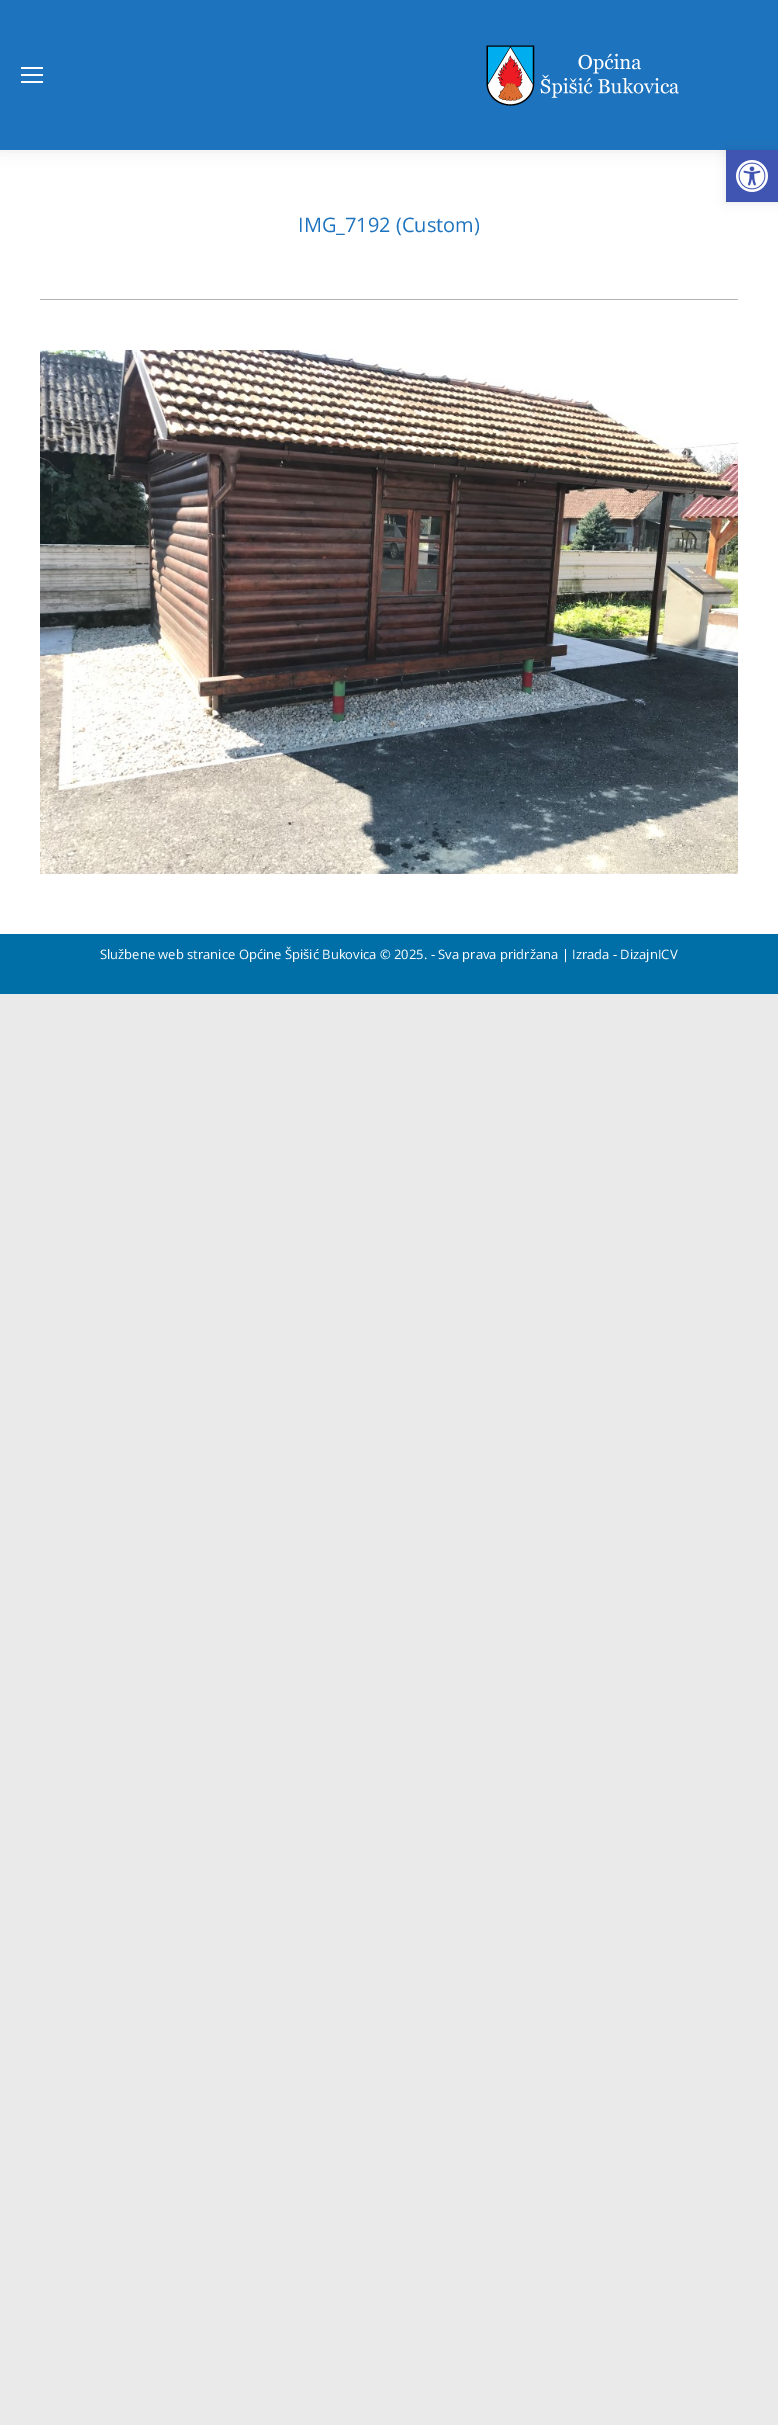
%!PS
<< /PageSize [778 2425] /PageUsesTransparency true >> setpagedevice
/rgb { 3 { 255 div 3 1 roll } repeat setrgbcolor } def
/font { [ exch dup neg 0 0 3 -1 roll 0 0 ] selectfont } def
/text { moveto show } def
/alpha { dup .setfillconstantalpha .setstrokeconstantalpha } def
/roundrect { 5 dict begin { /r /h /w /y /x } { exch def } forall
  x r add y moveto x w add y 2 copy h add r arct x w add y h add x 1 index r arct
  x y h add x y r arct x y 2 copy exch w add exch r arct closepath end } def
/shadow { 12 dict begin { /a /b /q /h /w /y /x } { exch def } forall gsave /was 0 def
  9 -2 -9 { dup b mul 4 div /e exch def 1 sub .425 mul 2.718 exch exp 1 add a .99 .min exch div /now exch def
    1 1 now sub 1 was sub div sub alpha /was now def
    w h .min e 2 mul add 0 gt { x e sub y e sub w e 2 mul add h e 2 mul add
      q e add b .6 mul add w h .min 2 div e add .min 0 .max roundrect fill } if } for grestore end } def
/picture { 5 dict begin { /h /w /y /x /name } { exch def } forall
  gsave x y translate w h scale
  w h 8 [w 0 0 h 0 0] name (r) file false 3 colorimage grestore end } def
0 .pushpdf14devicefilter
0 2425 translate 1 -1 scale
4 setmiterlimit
234 234 234 rgb
0 0 778 2425 rectfill
255 255 255 rgb
0 150 778 784 rectfill
0 0 0 rgb
-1 -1 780 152 0 7.5 0.07 shadow
30 115 190 rgb
0 0 778 150 rectfill
0 0 0 rgb
726 150 52 52 0 5 0.1 shadow
64 84 178 rgb
726 150 52 52 rectfill
(img_01.rgb) 736 160 32 32 picture
255 255 255 rgb
21 67 22 2 rectfill
21 74 22 2 rectfill
21 81 22 2 rectfill
(img_02.rgb) 486 45 193 61 picture
179 179 179 rgb
40 299 698 1 rectfill
(img_03.rgb) 40 350 698 524 picture
0 111 168 rgb
0 934 778 60 rectfill
/OpenSans-Regular 20 font
30 115 190 rgb
(IMG_7192 \(Custom\)) 298 232 text
/OpenSans-Regular 13 font
255 255 255 rgb
(Službene web stranice Općine Špišić Bukovica © 2025. - Sva prava pridržana | Izrada - DizajnICV) 100 959 text
.poppdf14devicefilter showpage
